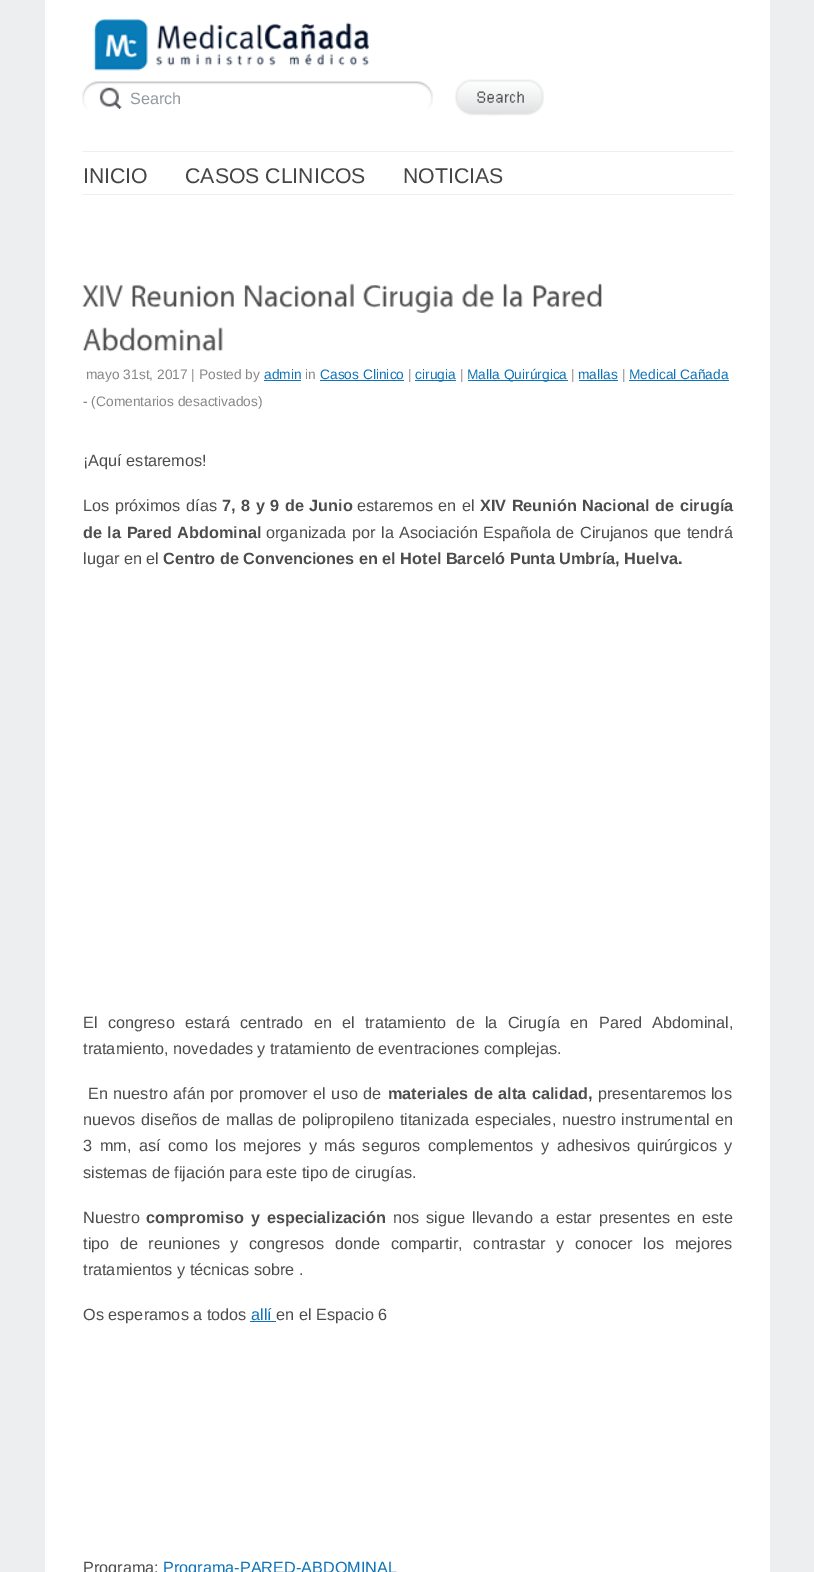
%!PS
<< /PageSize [814 1572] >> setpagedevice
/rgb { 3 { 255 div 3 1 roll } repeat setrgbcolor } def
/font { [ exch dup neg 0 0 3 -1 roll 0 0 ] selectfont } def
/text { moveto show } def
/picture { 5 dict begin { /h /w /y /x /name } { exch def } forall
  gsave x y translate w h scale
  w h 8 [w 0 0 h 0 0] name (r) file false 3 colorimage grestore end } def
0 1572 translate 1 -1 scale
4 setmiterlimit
237 238 239 rgb
0 0 814 1572 rectfill
255 255 255 rgb
45 0 725 1572 rectfill
(img_01.rgb) 93 18 276 53 picture
(img_02.rgb) 82 81 351 28 picture
(img_03.rgb) 455 79 89 37 picture
238 238 238 rgb
83 151 650 1 rectfill
83 194 650 1 rectfill
(img_04.rgb) 82 285 41 22 picture
(img_05.rgb) 132 285 102 23 picture
(img_06.rgb) 244 283 110 25 picture
(img_07.rgb) 363 285 90 28 picture
(img_08.rgb) 462 283 32 25 picture
(img_09.rgb) 503 283 20 25 picture
(img_10.rgb) 533 283 69 25 picture
(img_11.rgb) 83 327 140 25 picture
14 115 184 rgb
264 380 37 1 rectfill
320 380 84 1 rectfill
415 380 41 1 rectfill
468 380 100 1 rectfill
579 380 39 1 rectfill
629 380 100 1 rectfill
250 1321 26 1 rectfill
/LiberationSans-Regular 16.25 font
148 153 161 rgb
(Search) 130 104 text
/LiberationSans-Regular 21.25 font
69 69 69 rgb
(INICIO) 83 183 text
(CASOS CLINICOS) 185 183 text
(NOTICIAS) 403 183 text
/LiberationSans-Regular 13.75 font
135 135 137 rgb
(mayo 31st, 2017 | Posted by) 86 379 text
14 115 184 rgb
(admin) 264 379 text
135 135 137 rgb
(in) 305 379 text
14 115 184 rgb
(Casos Clinico) 320 379 text
135 135 137 rgb
(|) 408 379 text
14 115 184 rgb
(cirugia) 415 379 text
135 135 137 rgb
(|) 460 379 text
14 115 184 rgb
(Malla Quirúrgica) 467 379 text
135 135 137 rgb
(|) 571 379 text
14 115 184 rgb
(mallas) 578 379 text
135 135 137 rgb
(|) 622 379 text
14 115 184 rgb
(Medical Cañada) 629 379 text
135 135 137 rgb
(- \(Comentarios desactivados\)) 83 406 text
/LiberationSans-Regular 16.25 font
77 77 79 rgb
(¡Aquí estaremos!) 83 466 text
83 511 moveto 1 0 32 (Los próximos días) widthshow
/LiberationSans-Bold 16.25 font
222 511 moveto 1 0 32 (7, 8 y 9 de Junio) widthshow
/LiberationSans-Regular 16.25 font
357 511 moveto 1 0 32 (estaremos en el) widthshow
/LiberationSans-Bold 16.25 font
480 511 moveto 1 0 32 (XIV Reunión Nacional de cirugía) widthshow
83 538 moveto 1 0 32 (de la Pared Abdominal) widthshow
/LiberationSans-Regular 16.25 font
266 538 moveto 1 0 32 (organizada por la Asociación Española de Cirujanos que tendrá) widthshow
(lugar en el) 83 564 text
/LiberationSans-Bold 16.25 font
(Centro de Convenciones en el Hotel Barceló Punta Umbría, Huelva.) 163 564 text
/LiberationSans-Regular 16.25 font
83 1028 moveto 5.75 0 32 (El congreso estará centrado en el tratamiento de la Cirugía en Pared Abdominal,) widthshow
(tratamiento, novedades y tratamiento de eventraciones complejas.) 83 1054 text
88 1099 moveto 1 0 32 (En nuestro afán por promover el uso de) widthshow
/LiberationSans-Bold 16.25 font
388 1099 moveto 1 0 32 (materiales de alta calidad,) widthshow
/LiberationSans-Regular 16.25 font
(presentaremos los) 598 1099 text
83 1125 moveto 1 0 32 (nuevos diseños de mallas de polipropileno titanizada especiales, nuestro instrumental en) widthshow
83 1151 moveto 3 0 32 (3 mm, así como los mejores y más seguros complementos y adhesivos quirúrgicos y) widthshow
(sistemas de fijación para este tipo de cirugías.) 83 1178 text
(Nuestro) 83 1223 text
/LiberationSans-Bold 16.25 font
146 1223 moveto 2.5 0 32 (compromiso y especialización) widthshow
/LiberationSans-Regular 16.25 font
393 1223 moveto 2.5 0 32 (nos sigue llevando a estar presentes en este) widthshow
83 1249 moveto 6.1 0 32 (tipo de reuniones y congresos donde compartir, contrastar y conocer los mejores) widthshow
(tratamientos y técnicas sobre .) 83 1275 text
(Os esperamos a todos) 83 1320 text
14 115 184 rgb
(allí) 251 1320 text
77 77 79 rgb
(en el Espacio 6) 276 1320 text
(Programa:) 83 1573 text
14 115 184 rgb
(Programa-PARED-ABDOMINAL) 163 1573 text
showpage
